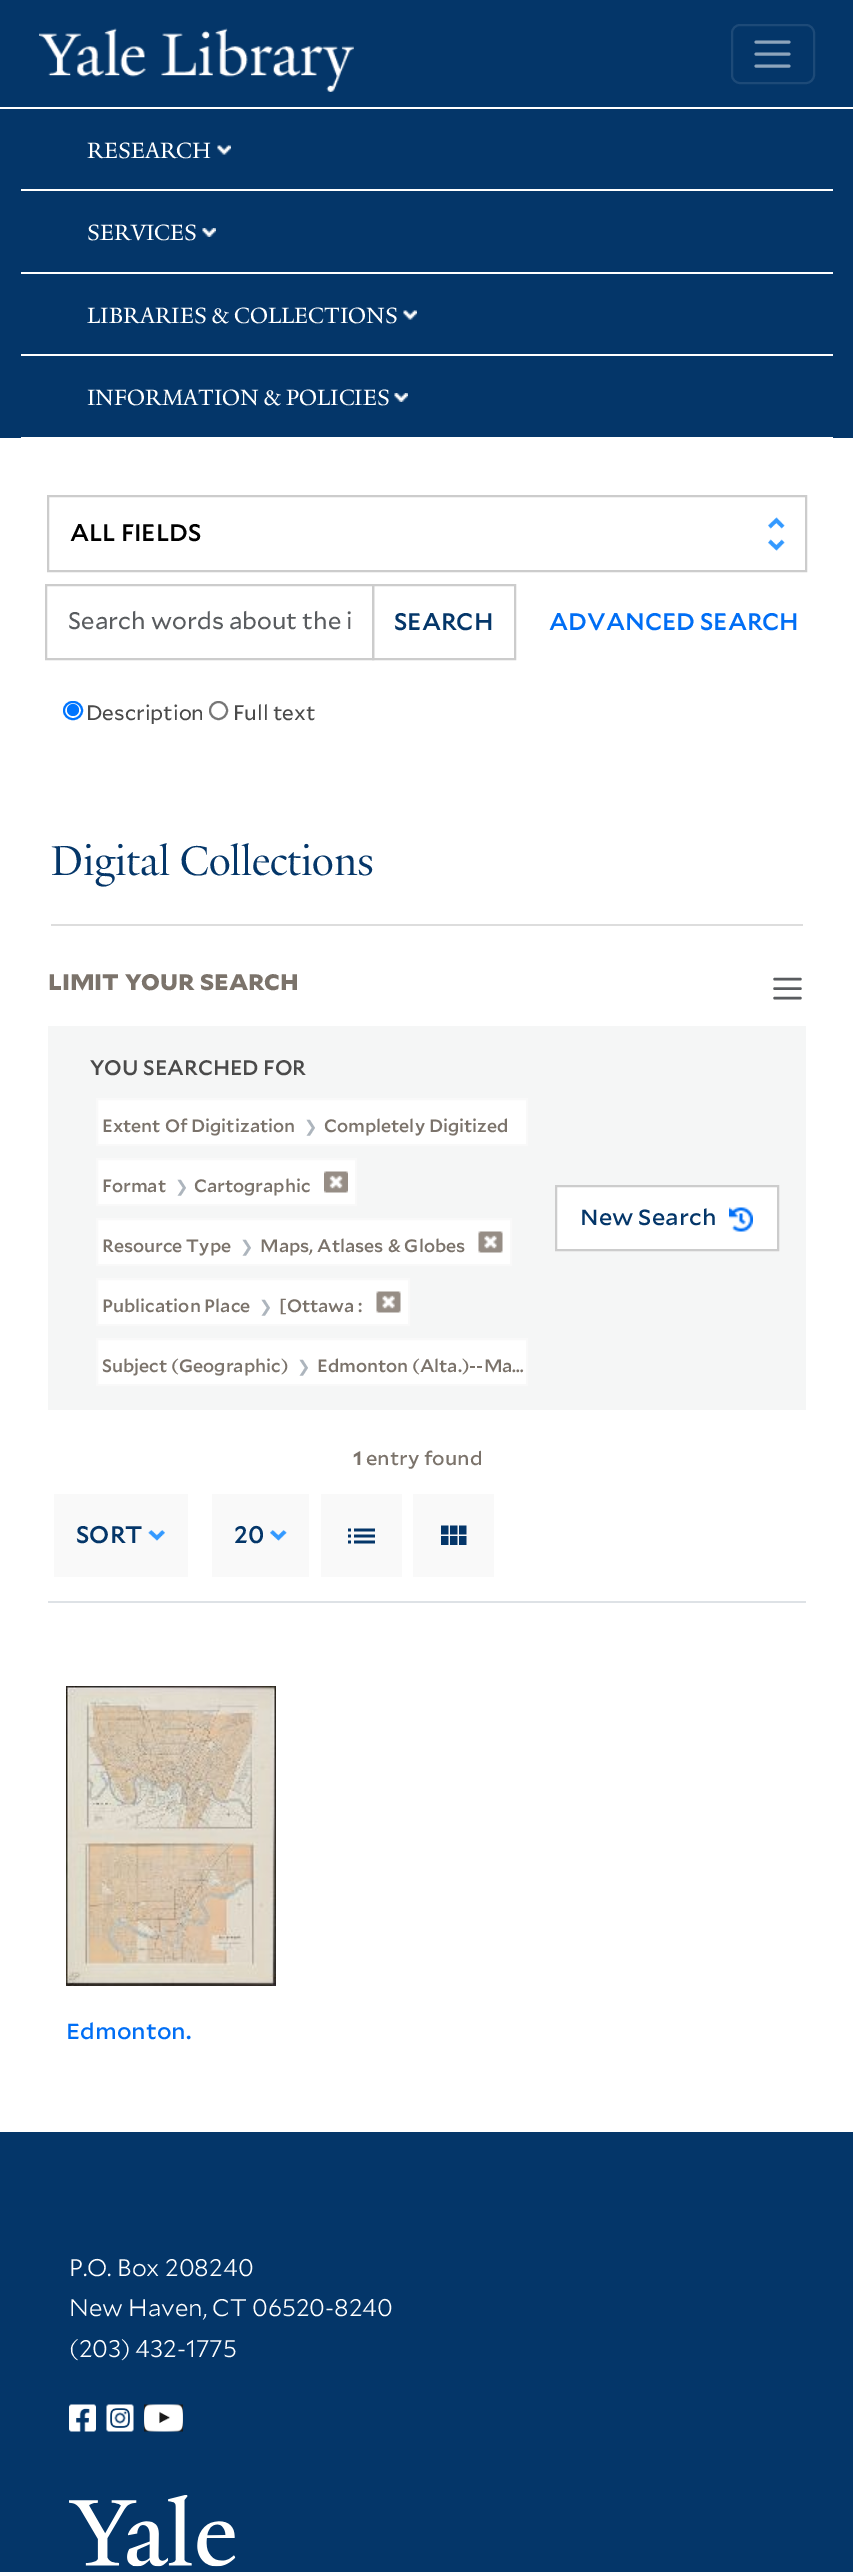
%!PS
<< /PageSize [853 2572] >> setpagedevice
/rgb { 3 { 255 div 3 1 roll } repeat setrgbcolor } def
/font { [ exch dup neg 0 0 3 -1 roll 0 0 ] selectfont } def
/text { moveto show } def
/circle { newpath 0 360 arc closepath } def
/roundrect { 5 dict begin { /r /h /w /y /x } { exch def } forall
  x r add y moveto x w add y 2 copy h add r arct x w add y h add x 1 index r arct
  x y h add x y r arct x y 2 copy exch w add exch r arct closepath end } def
/picture { 5 dict begin { /h /w /y /x /name } { exch def } forall
  gsave x y translate w h scale
  w h 8 [w 0 0 h 0 0] name (r) file false 3 colorimage grestore end } def
0 2572 translate 1 -1 scale
4 setmiterlimit
255 255 255 rgb
0 0 853 2572 rectfill
4 54 105 rgb
0 0 853 107 rectfill
(img_01.rgb) 39 28 315 64 picture
29 74 120 rgb
2 setlinewidth
732 25 82 58 8 roundrect stroke
142 165 188 rgb
3 setlinewidth
1 setlinecap
756 42 moveto 33 0 rlineto 756 54 moveto 33 0 rlineto 756 66 moveto 33 0 rlineto stroke
4 54 105 rgb
0 109 853 329 rectfill
255 255 255 rgb
21 189 812 2 rectfill
(img_02.rgb) 217 145 14 10 picture
21 272 812 2 rectfill
(img_03.rgb) 202 228 14 9 picture
21 354 812 2 rectfill
(img_04.rgb) 403 310 14 10 picture
21 437 812 1 rectfill
(img_05.rgb) 394 393 14 9 picture
(img_06.rgb) 768 517 17 34 picture
204 204 204 rgb
2 setlinewidth
0 setlinecap
48 496 758 75 rectstroke
46 585 327 74 rectstroke
373 585 142 74 rectstroke
0 117 255 rgb
64 702 18 17 8.5 roundrect stroke
73 710 6 circle fill
118 118 118 rgb
218.5 710.5 8.5 circle stroke
221 221 221 rgb
51 924 752 2 rectfill
89 92 95 rgb
2.4 setlinewidth
1 setlinecap
774.5 979 moveto 26 0 rlineto 774.5 988.5 moveto 26 0 rlineto 774.5 998 moveto 26 0 rlineto stroke
245 246 246 rgb
48 1026 758 384 rectfill
255 255 255 rgb
97 1099 moveto 430 0 rlineto 0 46 rlineto -430 0 rlineto closepath gsave fill grestore
249 249 249 rgb
2 setlinewidth
0 setlinecap
stroke
255 255 255 rgb
97 1159 moveto 259 0 rlineto 0 46 rlineto -259 0 rlineto closepath gsave fill grestore
249 249 249 rgb
stroke
(img_07.rgb) 324 1171 24 22 picture
255 255 255 rgb
556 1186 moveto 222 0 rlineto 0 64 rlineto -222 0 rlineto closepath gsave fill grestore
204 204 204 rgb
stroke
(img_08.rgb) 729 1207 24 25 picture
255 255 255 rgb
97 1219 moveto 414 0 rlineto 0 46 rlineto -414 0 rlineto closepath gsave fill grestore
249 249 249 rgb
stroke
(img_09.rgb) 478 1231 25 22 picture
255 255 255 rgb
97 1279 moveto 312 0 rlineto 0 46 rlineto -312 0 rlineto closepath gsave fill grestore
249 249 249 rgb
stroke
(img_10.rgb) 376 1291 25 22 picture
255 255 255 rgb
97 1339 moveto 430 0 rlineto 0 46 rlineto -430 0 rlineto closepath gsave fill grestore
249 249 249 rgb
stroke
222 226 230 rgb
48 1601 758 2 rectfill
249 249 249 rgb
54 1494 134 83 rectfill
(img_11.rgb) 148 1530 17 11 picture
212 1494 97 83 rectfill
(img_12.rgb) 270 1530 17 11 picture
321 1494 81 83 rectfill
(img_13.rgb) 348 1528 27 16 picture
413 1494 81 83 rectfill
(img_14.rgb) 441 1525 26 20 picture
(img_15.rgb) 66 1686 210 300 picture
4 54 105 rgb
0 2132 853 440 rectfill
(img_16.rgb) 69 2404 27 28 picture
(img_17.rgb) 106 2404 28 28 picture
(img_18.rgb) 144 2404 39 28 picture
(img_19.rgb) 69 2495 167 72 picture
/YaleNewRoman-Regular 24 font
255 255 255 rgb
(RESEARCH) 87 158 text
(SERVICES) 87 240 text
(LIBRARIES & COLLECTIONS) 87 323 text
(INFORMATION & POLICIES) 87 405 text
/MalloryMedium-Medium 24 font
0 0 0 rgb
(ALL FIELDS) 70 541 text
/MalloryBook-Regular 24 font
89 92 95 rgb
(Search words about the i) 68 629 text
/MalloryMedium-Medium 24 font
4 54 105 rgb
(SEARCH) 394 630 text
0 110 245 rgb
(ADVANCED SEARCH) 549 630 text
/MalloryBook-Regular 21 font
74 74 74 rgb
(Description) 86 720 text
(Full text) 233 720 text
/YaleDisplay-Regular 45 font
4 54 105 rgb
(Digital Collections) 51 875 text
/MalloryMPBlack-Black 21.6 font
123 115 107 rgb
(LIMIT YOUR SEARCH) 48 990 text
/MalloryMedium-Medium 21 font
74 74 74 rgb
(YOU SEARCHED FOR) 90 1075 text
/MalloryMedium-Medium 18 font
123 115 107 rgb
(Extent Of Digitization) 102 1132 text
/DejaVuSans-Regular 16 font
173 181 189 rgb
(❯) 304 1132 text
/MalloryMedium-Medium 18 font
123 115 107 rgb
(Completely Digitized) 324 1132 text
(Format) 102 1192 text
/DejaVuSans-Regular 16 font
173 181 189 rgb
(❯) 175 1192 text
/MalloryMedium-Medium 18 font
123 115 107 rgb
(Cartographic) 194 1192 text
/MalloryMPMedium-Medium 21 font
4 54 105 rgb
(New Search) 580 1225 text
/MalloryMedium-Medium 18 font
123 115 107 rgb
(Resource Type) 102 1252 text
/DejaVuSans-Regular 16 font
173 181 189 rgb
(❯) 240 1252 text
/MalloryMedium-Medium 18 font
123 115 107 rgb
(Maps, Atlases & Globes) 260 1252 text
(Publication Place) 102 1312 text
/DejaVuSans-Regular 16 font
173 181 189 rgb
(❯) 259 1312 text
/MalloryMedium-Medium 18 font
123 115 107 rgb
([Ottawa :) 279 1312 text
(Subject \(Geographic\)) 102 1372 text
/DejaVuSans-Regular 16 font
173 181 189 rgb
(❯) 297 1372 text
/MalloryMedium-Medium 18 font
123 115 107 rgb
(Edmonton \(Alta.\)--Ma…) 317 1372 text
/MalloryMPMedium-Bold 18 font
(1) 353 1465 text
/MalloryMPMedium-Medium 18 font
(entry found) 366 1465 text
/MalloryMedium-Medium 24 font
4 54 105 rgb
(SORT) 76 1543 text
(20) 234 1543 text
/MalloryMPMedium-Medium 21 font
0 110 245 rgb
(Edmonton.) 66 2039 text
/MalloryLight-Light 24 font
255 255 255 rgb
(P.O. Box 208240) 69 2276 text
(New Haven, CT 06520-8240) 69 2316 text
69 2357 moveto -1 0 32 (\(203\) 432-1775) widthshow
showpage
